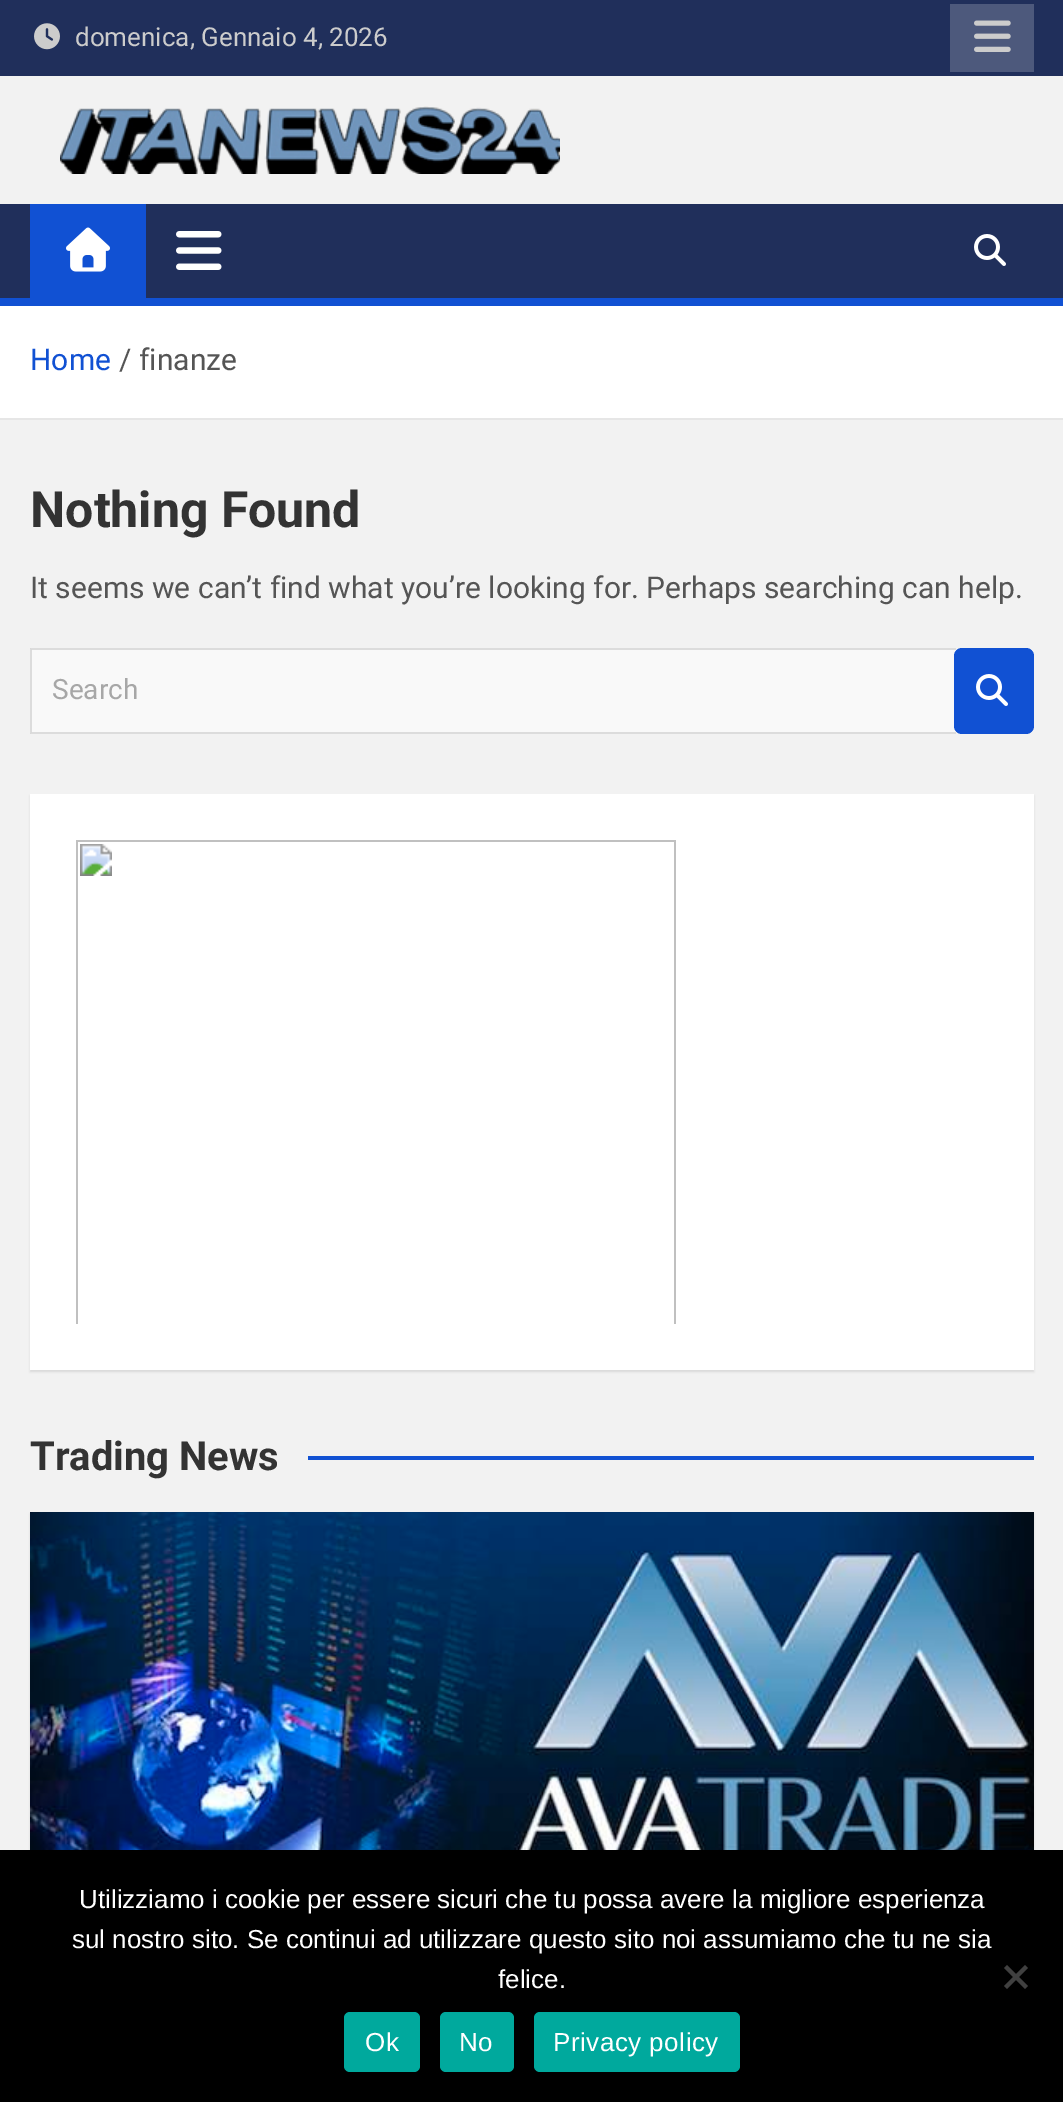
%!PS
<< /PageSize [1063 2102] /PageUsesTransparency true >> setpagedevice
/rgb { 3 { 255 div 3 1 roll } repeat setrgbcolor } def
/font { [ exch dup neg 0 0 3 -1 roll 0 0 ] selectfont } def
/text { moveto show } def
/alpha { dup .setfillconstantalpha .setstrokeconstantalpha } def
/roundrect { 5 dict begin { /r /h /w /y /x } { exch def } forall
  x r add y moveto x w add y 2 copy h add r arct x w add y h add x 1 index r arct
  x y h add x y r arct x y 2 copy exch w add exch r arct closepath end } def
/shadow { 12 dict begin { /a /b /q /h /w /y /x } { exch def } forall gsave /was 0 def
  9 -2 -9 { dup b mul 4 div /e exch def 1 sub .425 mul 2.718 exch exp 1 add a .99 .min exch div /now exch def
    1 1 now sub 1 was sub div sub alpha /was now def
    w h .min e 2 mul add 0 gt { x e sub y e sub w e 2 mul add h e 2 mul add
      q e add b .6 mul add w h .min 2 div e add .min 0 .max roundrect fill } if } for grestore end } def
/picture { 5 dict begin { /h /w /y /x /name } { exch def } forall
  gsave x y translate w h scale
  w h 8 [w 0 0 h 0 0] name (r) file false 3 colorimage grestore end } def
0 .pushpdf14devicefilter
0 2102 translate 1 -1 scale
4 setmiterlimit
242 242 242 rgb
0 0 1063 2102 rectfill
32 47 91 rgb
0 0 1063 76 rectfill
(img_01.rgb) 34 23 26 27 picture
77 89 124 rgb
950 4 84 68 rectfill
(img_02.rgb) 974 20 37 32 picture
(img_03.rgb) 60 106 500 68 picture
32 47 91 rgb
0 204 1063 94 rectfill
17 81 211 rgb
30 204 116 94 rectfill
(img_04.rgb) 66 227 44 45 picture
(img_05.rgb) 176 231 46 39 picture
(img_06.rgb) 974 234 32 32 picture
0 298 1063 8 rectfill
255 255 255 rgb
0 306 1063 112 rectfill
230 230 230 rgb
0 418 1063 2 rectfill
249 249 249 rgb
32 650 924 82 rectfill
220 220 220 rgb
30 648 moveto 926 0 rlineto 0 2 rlineto -924 0 rlineto closepath fill
956 734 moveto -926 0 rlineto 2 -2 rlineto 924 0 rlineto closepath fill
0.09 alpha
0 0 0 rgb
30 734 moveto 0 -86 rlineto 2 2 rlineto 0 82 rlineto closepath fill
1 alpha
17 81 211 rgb
954 648 80 86 8 roundrect fill
(img_07.rgb) 976 674 32 32 picture
0 0 0 rgb
30 796 1004 576 0 1 0.1 shadow
255 255 255 rgb
30 794 1004 576 rectfill
(img_08.rgb) 76 840 600 484 picture
17 81 211 rgb
308 1456 726 4 rectfill
0 0 0 rgb
30 1514 1004 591 0 1 0.1 shadow
(img_09.rgb) 30 1512 1004 338 picture
0 1850 1063 252 rectfill
64 64 64 rgb
1025 1965 moveto 3 3 rlineto -21 21 rlineto -3 -3 rlineto closepath fill
1004 1968 moveto 3 -3 rlineto 21 21 rlineto -3 3 rlineto closepath fill
0 169 157 rgb
344 2012 76 60 6 roundrect fill
440 2012 74 60 6 roundrect fill
534 2012 206 60 6 roundrect fill
/Roboto-Regular 26 font
204 204 204 rgb
(domenica, Gennaio 4, 2026) 75 46 text
/Roboto-Regular 30 font
17 81 211 rgb
(Home) 30 370 text
85 85 85 rgb
(/) 119 370 text
(finanze) 139 370 text
/Roboto-Bold 50 font
51 51 51 rgb
(Nothing Found) 30 527 text
/Roboto-Regular 30 font
85 85 85 rgb
(It seems we can’t find what you’re looking for. Perhaps searching can help.) 30 598 text
/Roboto-Regular 28 font
167 167 167 rgb
(Search) 52 699 text
/Roboto-Bold 40 font
51 51 51 rgb
(Trading News) 30 1470 text
/LiberationSans-Regular 26 font
255 255 255 rgb
(Utilizziamo i cookie per essere sicuri che tu possa avere la migliore esperienza) 79 1908 text
(sul nostro sito. Se continui ad utilizzare questo sito noi assumiamo che tu ne sia) 72 1948 text
(felice.) 498 1988 text
365 2051 moveto 0.5 0 (Ok) ashow
459 2051 moveto 0.5 0 (No) ashow
553 2051 moveto 0.5 0 (Privacy policy) ashow
.poppdf14devicefilter showpage
